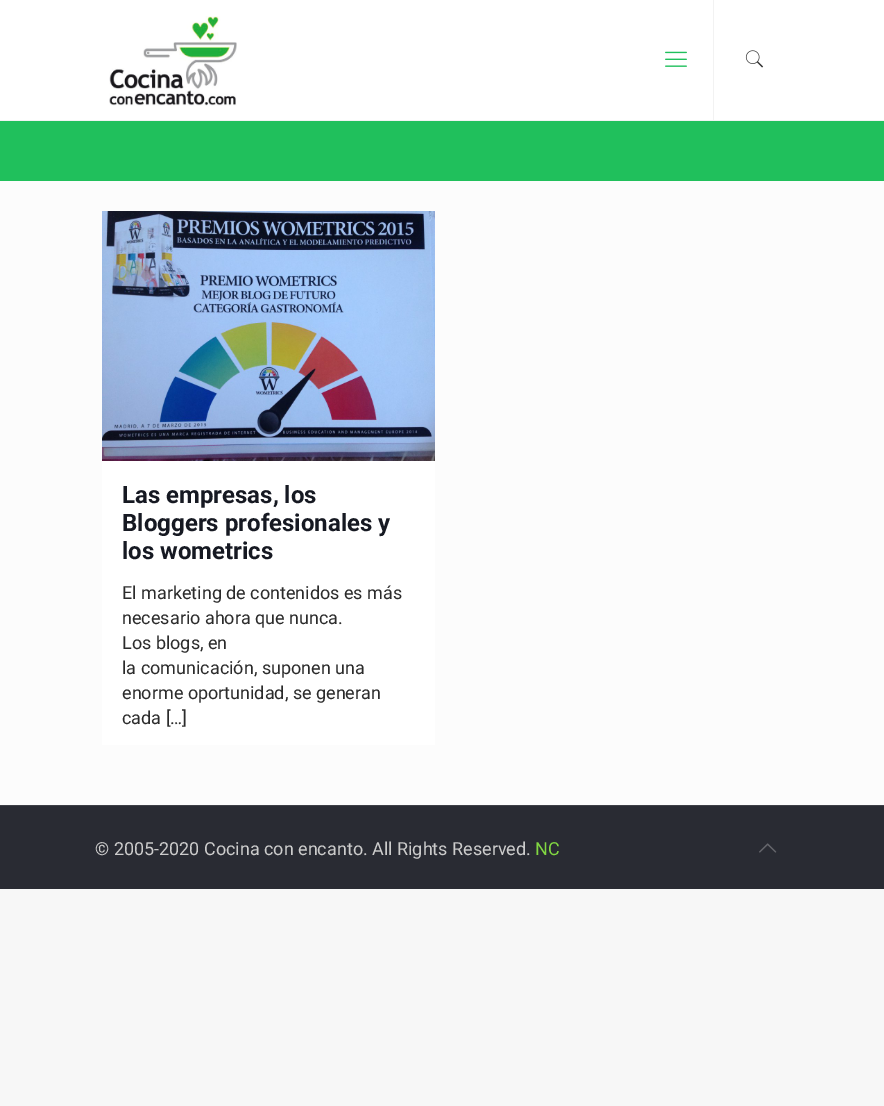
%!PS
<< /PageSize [884 1106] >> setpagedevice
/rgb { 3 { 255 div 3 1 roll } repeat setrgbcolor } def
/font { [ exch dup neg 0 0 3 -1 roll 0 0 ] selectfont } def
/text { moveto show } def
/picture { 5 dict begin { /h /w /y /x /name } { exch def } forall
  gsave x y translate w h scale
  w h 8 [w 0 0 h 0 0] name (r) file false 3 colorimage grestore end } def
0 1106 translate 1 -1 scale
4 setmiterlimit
247 247 247 rgb
0 0 884 1106 rectfill
252 252 252 rgb
0 181 884 624 rectfill
255 255 255 rgb
0 0 884 120 rectfill
242 242 242 rgb
0 120 884 1 rectfill
(img_01.rgb) 109 16 128 90 picture
(img_02.rgb) 665 51 22 16 picture
713 0 1 120 rectfill
(img_03.rgb) 745 50 19 18 picture
32 192 92 rgb
0 121 884 60 rectfill
255 255 255 rgb
102 461 333 284 rectfill
(img_04.rgb) 102 211 333 250 picture
41 43 51 rgb
0 806 884 83 rectfill
62 64 71 rgb
0 805 884 1 rectfill
(img_05.rgb) 759 843 18 10 picture
/Roboto-Bold 24 font
22 25 34 rgb
(Las empresas, los) 122 503 text
(Bloggers profesionales y) 122 531 text
(los wometrics) 122 559 text
/Roboto-Regular 18 font
43 43 43 rgb
(El marketing de contenidos es más) 122 599 text
(necesario ahora que nunca.) 122 624 text
(Los blogs, en) 122 649 text
(la comunicación, suponen una) 122 674 text
(enorme oportunidad, se generan) 122 699 text
(cada […]) 122 724 text
204 204 204 rgb
(© 2005-2020 Cocina con encanto. All Rights Reserved.) 95 855 text
129 215 66 rgb
(NC) 535 855 text
showpage
